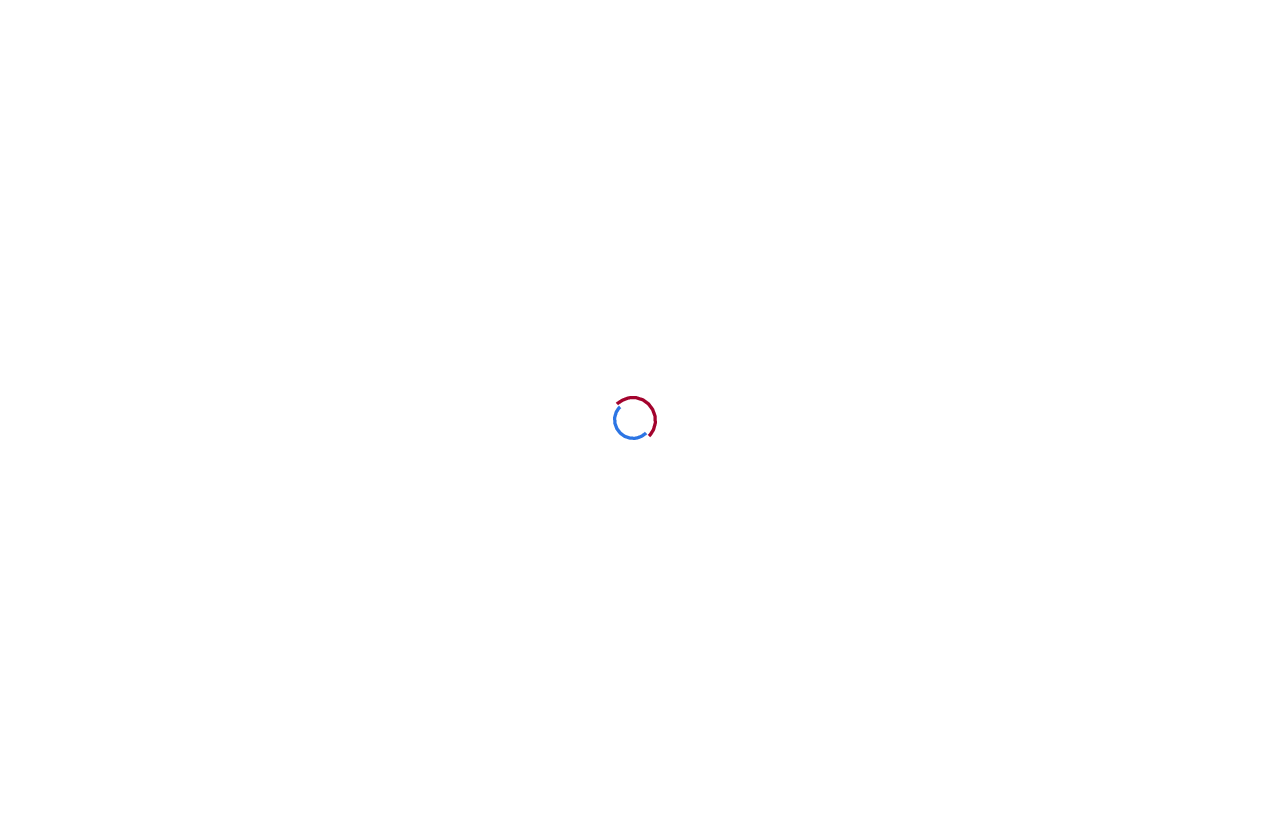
%!PS
<< /PageSize [1266 839] >> setpagedevice
/rgb { 3 { 255 div 3 1 roll } repeat setrgbcolor } def
0 839 translate 1 -1 scale
4 setmiterlimit
255 255 255 rgb
0 0 1266 839 rectfill
163 3 45 rgb
3 setlinewidth
617 404 moveto 3 -3 7.5 -5 11.5 -6 rcurveto 21.5 -4.5 36 22.5 20.5 38 rcurveto stroke
44 117 228 rgb
646 433 moveto -2.5 2.5 -6 4.5 -9.5 5 rcurveto -17.5 3.5 -29.5 -18.5 -16.5 -31 rcurveto 646 433 moveto -2.5 2.5 -6 4.5 -9.5 5 rcurveto -17.5 3.5 -29.5 -18.5 -16.5 -31 rcurveto stroke
showpage
